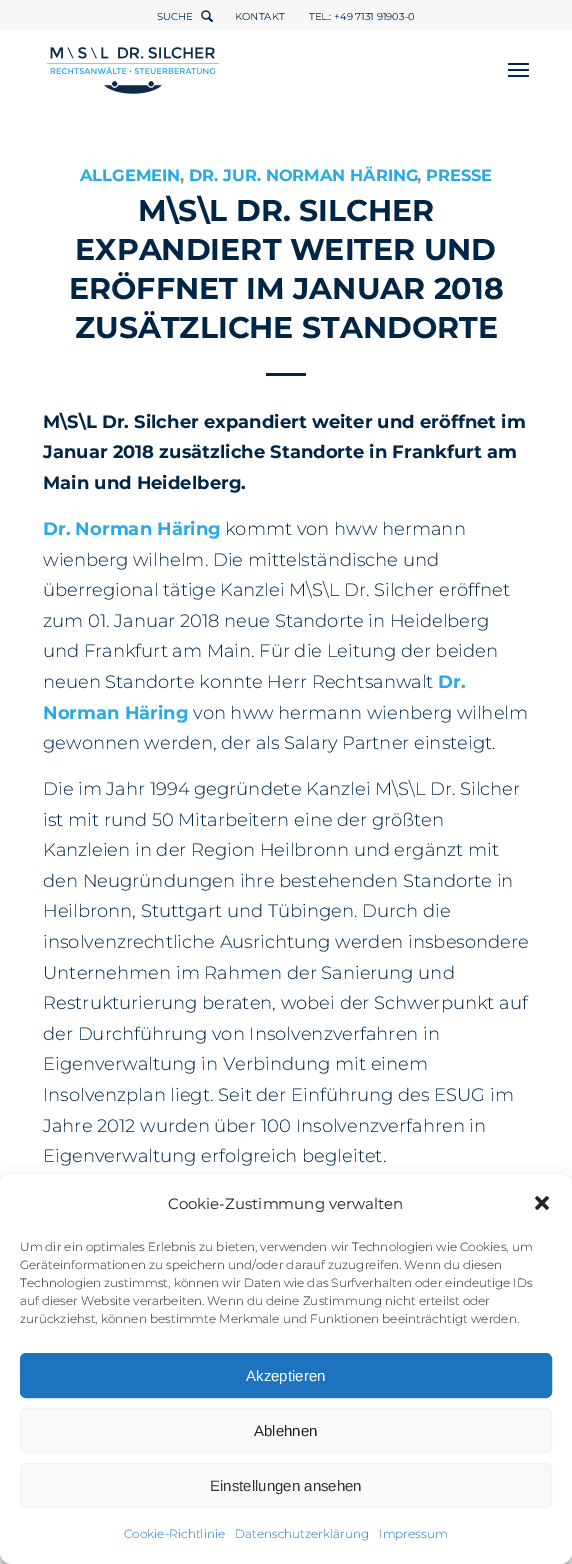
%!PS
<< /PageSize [572 1564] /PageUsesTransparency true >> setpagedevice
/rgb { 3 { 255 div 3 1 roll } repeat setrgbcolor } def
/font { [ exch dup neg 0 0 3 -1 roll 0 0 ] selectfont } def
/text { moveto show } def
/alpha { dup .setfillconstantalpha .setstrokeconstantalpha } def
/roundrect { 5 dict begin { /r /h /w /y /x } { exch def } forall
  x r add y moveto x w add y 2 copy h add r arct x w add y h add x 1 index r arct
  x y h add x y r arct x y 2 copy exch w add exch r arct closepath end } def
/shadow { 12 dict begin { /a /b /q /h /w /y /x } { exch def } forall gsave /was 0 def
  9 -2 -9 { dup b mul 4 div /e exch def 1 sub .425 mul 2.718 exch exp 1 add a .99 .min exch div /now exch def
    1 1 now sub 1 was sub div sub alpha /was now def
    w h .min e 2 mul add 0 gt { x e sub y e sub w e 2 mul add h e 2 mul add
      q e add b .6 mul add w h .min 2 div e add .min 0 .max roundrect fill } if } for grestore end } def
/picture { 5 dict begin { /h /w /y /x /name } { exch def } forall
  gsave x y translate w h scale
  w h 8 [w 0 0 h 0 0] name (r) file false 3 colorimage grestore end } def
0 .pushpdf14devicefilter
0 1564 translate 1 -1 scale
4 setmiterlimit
255 255 255 rgb
0 0 572 1564 rectfill
247 247 247 rgb
0 0 572 30 rectfill
(img_01.rgb) 201 10 12 13 picture
(img_02.rgb) 47 47 172 47 picture
0 38 71 rgb
508 69 21 2 1 roundrect fill
508 63 21 2 1 roundrect fill
508 75 21 2 1 roundrect fill
266 373 40 3 rectfill
0 0 0 rgb
0 1180 572 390 12 3 0.23 shadow
0 1184 572 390 12 10 0.19 shadow
255 255 255 rgb
0 1174 572 390 12 roundrect fill
(img_03.rgb) 535 1196 14 14 picture
30 115 190 rgb
20.5 1353.5 531 44 5.5 roundrect gsave fill grestore
stroke
249 249 249 rgb
20.5 1408.5 531 44 5.5 roundrect gsave fill grestore
242 242 242 rgb
stroke
249 249 249 rgb
20.5 1463.5 531 44 5.5 roundrect gsave fill grestore
242 242 242 rgb
stroke
/Montserrat-Regular 10 font
0 38 71 rgb
(SUCHE) 157 20 text
(KONTAKT) 235 20 text
(TEL.: +49 7131 91903-0) 309 20 text
/Montserrat-Bold 16.25 font
41 170 226 rgb
(ALLGEMEIN) 80 181 text
145 145 145 rgb
(,) 180 181 text
41 170 226 rgb
(DR. JUR. NORMAN HÄRING) 189 181 text
145 145 145 rgb
(,) 417 181 text
41 170 226 rgb
(PRESSE) 426 181 text
/Montserrat-Bold 30 font
0 38 71 rgb
(M\\S\\L DR. SILCHER) 138 221 text
(EXPANDIERT WEITER UND) 75 260 text
(ERÖFFNET IM JANUAR 2018) 69 299 text
(ZUSÄTZLICHE STANDORTE) 75 338 text
/Montserrat-Bold 18 font
(M\\S\\L Dr. Silcher expandiert weiter und eröffnet im) 43 428 text
(Januar 2018 zusätzliche Standorte in Frankfurt am) 43 458 text
(Main und Heidelberg.) 43 489 text
41 170 226 rgb
(Dr. Norman Häring) 43 535 text
/Montserrat-Light 18 font
0 38 71 rgb
(kommt von hww hermann) 225 535 text
(wienberg wilhelm. Die mittelständische und) 43 566 text
(überregional tätige Kanzlei M\\S\\L Dr. Silcher eröffnet) 43 596 text
(zum 01. Januar 2018 neue Standorte in Heidelberg) 43 627 text
(und Frankfurt am Main. Für die Leitung der beiden) 43 657 text
(neuen Standorte konnte Herr Rechtsanwalt) 43 688 text
/Montserrat-Bold 18 font
41 170 226 rgb
(Dr.) 438 688 text
(Norman Häring) 43 719 text
/Montserrat-Light 18 font
0 38 71 rgb
(von hww hermann wienberg wilhelm) 193 719 text
(gewonnen werden, der als Salary Partner einsteigt.) 43 749 text
(Die im Jahr 1994 gegründete Kanzlei M\\S\\L Dr. Silcher) 43 795 text
(ist mit rund 50 Mitarbeitern eine der größten) 43 826 text
(Kanzleien in der Region Heilbronn und ergänzt mit) 43 856 text
(den Neugründungen ihre bestehenden Standorte in) 43 887 text
(Heilbronn, Stuttgart und Tübingen. Durch die) 43 917 text
(insolvenzrechtliche Ausrichtung werden insbesondere) 43 948 text
(Unternehmen im Rahmen der Sanierung und) 43 979 text
(Restrukturierung beraten, wobei der Schwerpunkt auf) 43 1009 text
(der Durchführung von Insolvenzverfahren in) 43 1040 text
(Eigenverwaltung in Verbindung mit einem) 43 1070 text
(Insolvenzplan liegt. Seit der Einführung des ESUG im) 43 1101 text
(Jahre 2012 wurden über 100 Insolvenzverfahren in) 43 1132 text
(Eigenverwaltung erfolgreich begleitet.) 43 1162 text
/Montserrat-Regular 15 font
34 34 34 rgb
(Cookie-Zustimmung verwalten) 168 1209 text
/Montserrat-Light 12 font
(Um dir ein optimales Erlebnis zu bieten, verwenden wir Technologien wie Cookies, um) 20 1251 text
(Geräteinformationen zu speichern und/oder darauf zuzugreifen. Wenn du diesen) 20 1269 text
(Technologien zustimmst, können wir Daten wie das Surfverhalten oder eindeutige IDs) 20 1287 text
(auf dieser Website verarbeiten. Wenn du deine Zustimmung nicht erteilst oder) 20 1305 text
(zurückziehst, können bestimmte Merkmale und Funktionen beeinträchtigt werden.) 20 1323 text
/LiberationSans-Regular 15 font
255 255 255 rgb
(Akzeptieren) 246 1381 text
34 34 34 rgb
(Ablehnen) 254 1436 text
51 51 51 rgb
(Einstellungen ansehen) 210 1491 text
/Montserrat-Light 12 font
30 115 190 rgb
(Cookie-Richtlinie) 124 1538 text
(Datenschutzerklärung) 235 1538 text
(Impressum) 379 1538 text
.poppdf14devicefilter showpage
